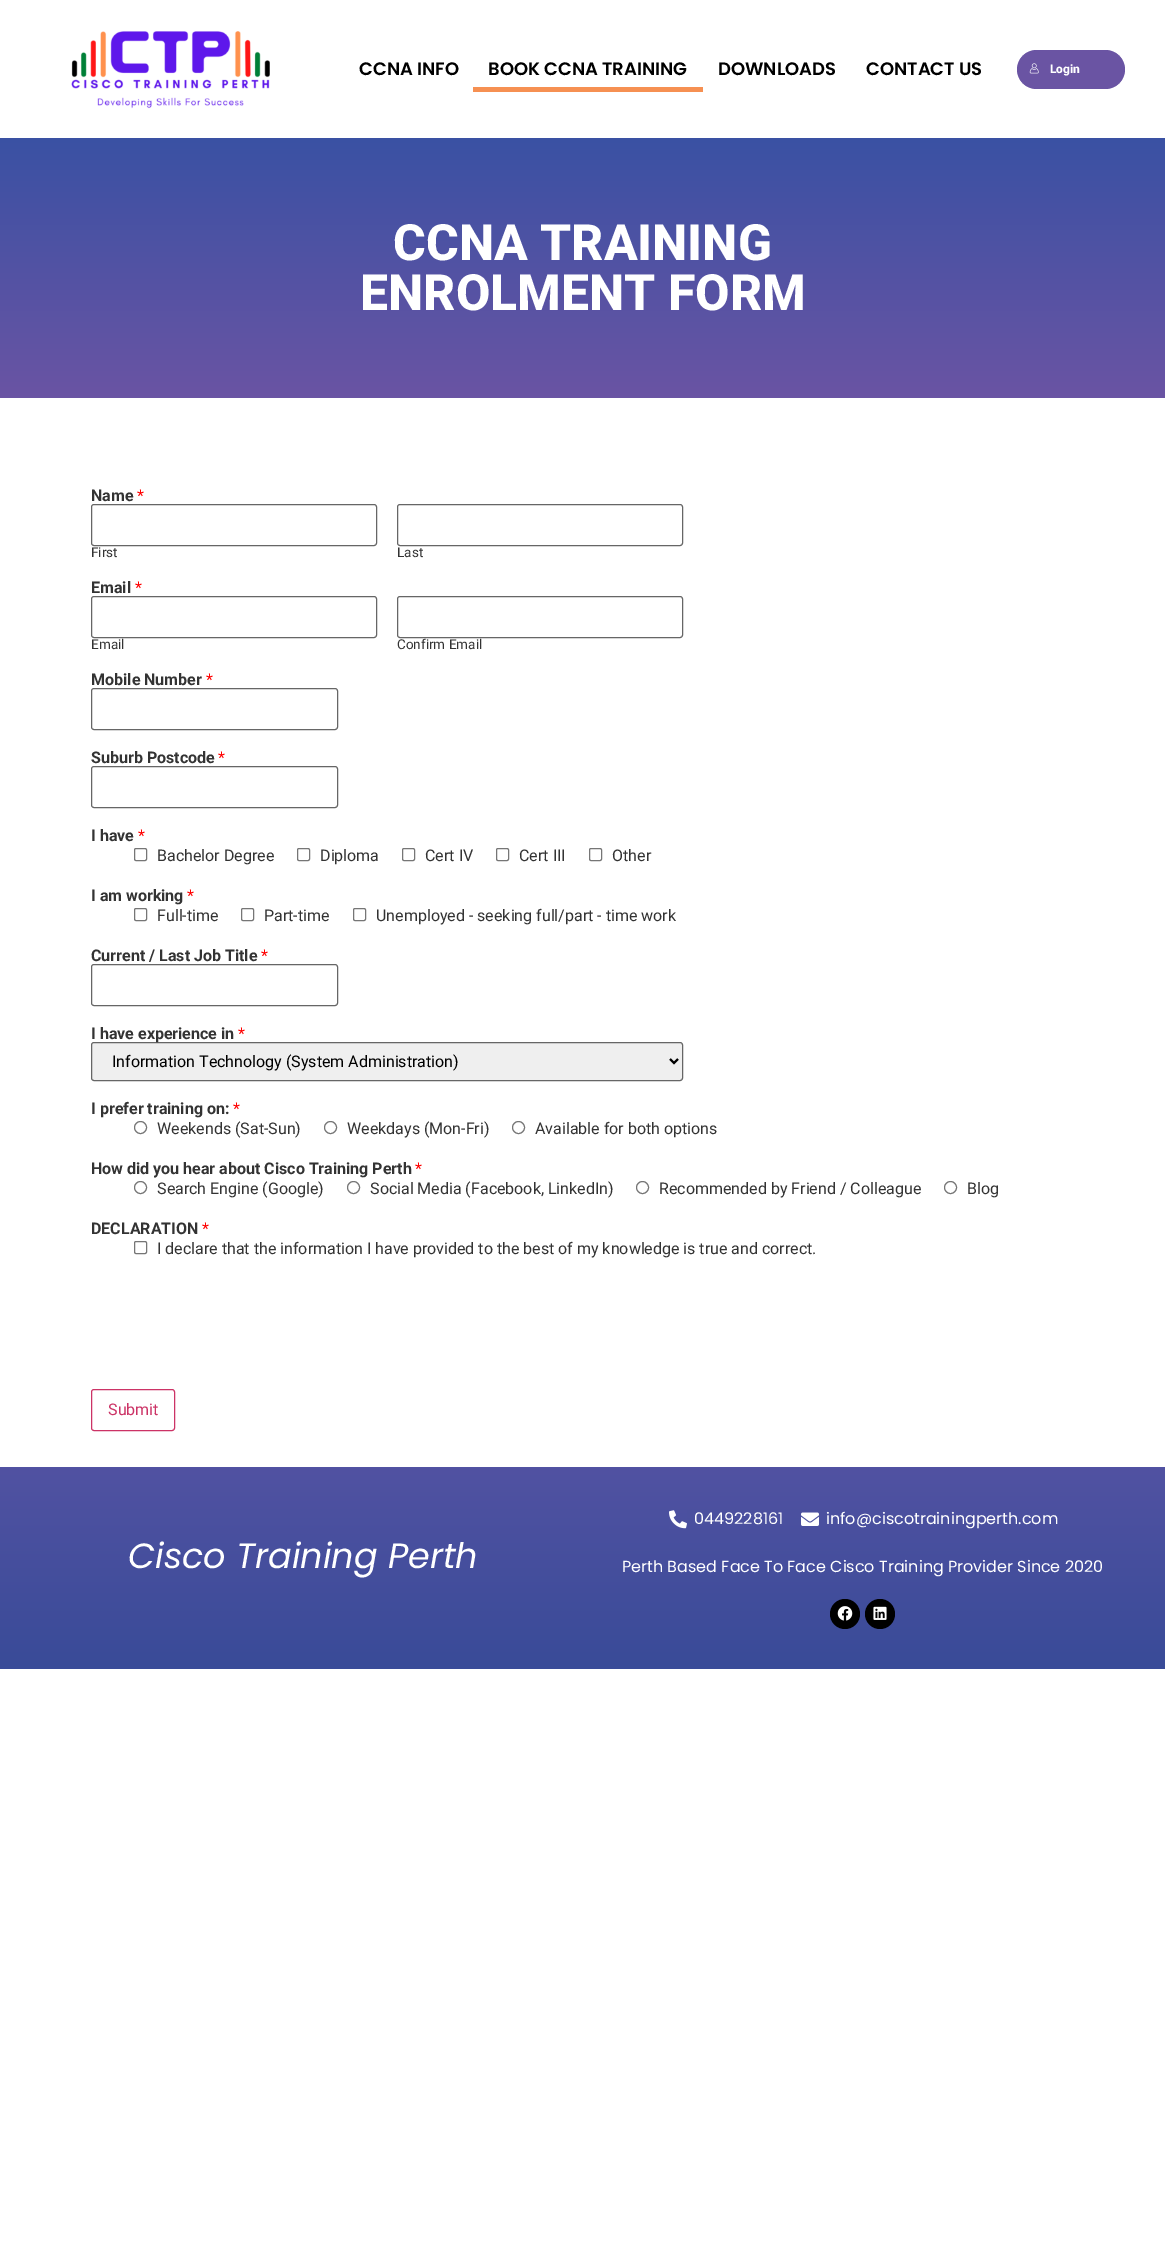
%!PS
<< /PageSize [1165 2258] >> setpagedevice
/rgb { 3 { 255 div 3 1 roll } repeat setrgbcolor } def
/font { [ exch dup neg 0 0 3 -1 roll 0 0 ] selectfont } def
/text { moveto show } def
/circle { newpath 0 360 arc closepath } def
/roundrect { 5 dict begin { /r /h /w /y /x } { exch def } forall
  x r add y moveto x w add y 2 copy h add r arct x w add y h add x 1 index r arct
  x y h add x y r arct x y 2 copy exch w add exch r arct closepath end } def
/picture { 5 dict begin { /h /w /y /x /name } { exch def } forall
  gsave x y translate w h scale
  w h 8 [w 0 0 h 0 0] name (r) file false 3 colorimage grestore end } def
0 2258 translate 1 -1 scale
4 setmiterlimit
255 255 255 rgb
0 0 1165 2258 rectfill
(img_01.rgb) 71 31 199 78 picture
246 144 82 rgb
473 87 230 5 rectfill
106 84 163 rgb
1017 50 108 39 19.5 roundrect fill
(img_02.rgb) 1029 63 10 11 picture
gsave 0 138 moveto 1165 0 rlineto 0 260 rlineto -1165 0 rlineto closepath clip newpath
<< /ShadingType 2 /ColorSpace /DeviceRGB /Coords [583 138 583 398] /Extend [true true] /Function << /FunctionType 2 /Domain [0 1] /C0 [0.227 0.318 0.639] /C1 [0.416 0.329 0.639] /N 1 >> >> shfill grestore
102 102 102 rgb
91.5 504.5 285 41 2.5 roundrect stroke
397.5 504.5 285 41 2.5 roundrect stroke
91.5 596.5 285 41 2.5 roundrect stroke
397.5 596.5 285 41 2.5 roundrect stroke
91.5 688.5 246 41 2.5 roundrect stroke
91.5 766.5 246 41 2.5 roundrect stroke
118 118 118 rgb
134.5 848.5 12 12 1.5 roundrect stroke
297.5 848.5 12 12 1.5 roundrect stroke
402.5 848.5 12 12 1.5 roundrect stroke
496.5 848.5 12 12 1.5 roundrect stroke
589.5 848.5 12 12 1.5 roundrect stroke
134.5 908.5 12 12 1.5 roundrect stroke
241.5 908.5 12 12 1.5 roundrect stroke
353.5 908.5 12 12 1.5 roundrect stroke
102 102 102 rgb
91.5 964.5 246 41 2.5 roundrect stroke
239 239 239 rgb
91.5 1042.5 591 38 2.5 roundrect gsave fill grestore
102 102 102 rgb
stroke
0 0 0 rgb
2 setlinewidth
670 1059 moveto 4 4 rlineto 4 -4 rlineto stroke
118 118 118 rgb
1 setlinewidth
140.5 1127.5 6 circle stroke
330.5 1127.5 6 circle stroke
518.5 1127.5 6 circle stroke
140.5 1187.5 6 circle stroke
353.5 1187.5 6 circle stroke
642.5 1187.5 6 circle stroke
950.5 1187.5 6 circle stroke
134.5 1241.5 12 12 1.5 roundrect stroke
204 51 102 rgb
91.5 1389.5 83 41 2.5 roundrect stroke
gsave 0 1467 moveto 1165 0 rlineto 0 202 rlineto -1165 0 rlineto closepath clip newpath
<< /ShadingType 2 /ColorSpace /DeviceRGB /Coords [583 1669 583 1467] /Extend [true true] /Function << /FunctionType 2 /Domain [0 1] /C0 [0.224 0.294 0.596] /C1 [0.318 0.322 0.635] /N 1 >> >> shfill grestore
(img_03.rgb) 669 1510 18 19 picture
(img_04.rgb) 801 1512 18 14 picture
0 0 0 rgb
845 1614 15 circle fill
(img_05.rgb) 837 1606 16 15 picture
880 1614 15 circle fill
(img_06.rgb) 873 1606 14 14 picture
/Poppins-SemiBold 18 font
(CCNA INFO) 359 75 text
(BOOK CCNA TRAINING) 488 75 text
(DOWNLOADS) 718 75 text
(CONTACT US) 866 75 text
/Roboto-ExtraBold 12 font
255 255 255 rgb
(Login) 1050 73 text
/Roboto-ExtraBold 50 font
(CCNA TRAINING) 393 260 text
(ENROLMENT FORM) 360 310 text
/Roboto-Bold 16 font
51 51 51 rgb
(Name) 91 501 text
/Roboto-Regular 16 font
255 0 0 rgb
(*) 137 501 text
/Roboto-Regular 13.5 font
51 51 51 rgb
(First) 91 557 text
(Last) 397 557 text
/Roboto-Bold 16 font
(Email) 91 593 text
/Roboto-Regular 16 font
255 0 0 rgb
(*) 135 593 text
/Roboto-Regular 13.5 font
51 51 51 rgb
(Email) 91 649 text
(Confirm Email) 397 649 text
/Roboto-Bold 16 font
(Mobile Number) 91 685 text
/Roboto-Regular 16 font
255 0 0 rgb
(*) 206 685 text
/Roboto-Bold 16 font
51 51 51 rgb
(Suburb Postcode) 91 763 text
/Roboto-Regular 16 font
255 0 0 rgb
(*) 218 763 text
/Roboto-Bold 16 font
51 51 51 rgb
(I have) 91 841 text
/Roboto-Regular 16 font
255 0 0 rgb
(*) 138 841 text
51 51 51 rgb
(Bachelor Degree) 157 861 text
(Diploma) 320 861 text
(Cert IV) 425 861 text
(Cert III) 519 861 text
(Other) 612 861 text
/Roboto-Bold 16 font
(I am working) 91 901 text
/Roboto-Regular 16 font
255 0 0 rgb
(*) 187 901 text
51 51 51 rgb
(Full-time) 157 921 text
(Part-time) 264 921 text
(Unemployed - seeking full/part - time work) 376 921 text
/Roboto-Bold 16 font
(Current / Last Job Title) 91 961 text
/Roboto-Regular 16 font
255 0 0 rgb
(*) 261 961 text
/Roboto-Bold 16 font
51 51 51 rgb
(I have experience in) 91 1039 text
/Roboto-Regular 16 font
255 0 0 rgb
(*) 238 1039 text
0 0 0 rgb
(Information Technology \(System Administration\)) 112 1067 text
/Roboto-Bold 16 font
51 51 51 rgb
(I prefer training on:) 91 1114 text
/Roboto-Regular 16 font
255 0 0 rgb
(*) 233 1114 text
51 51 51 rgb
(Weekends \(Sat-Sun\)) 157 1134 text
(Weekdays \(Mon-Fri\)) 347 1134 text
(Available for both options) 535 1134 text
/Roboto-Bold 16 font
(How did you hear about Cisco Training Perth) 91 1174 text
/Roboto-Regular 16 font
255 0 0 rgb
(*) 415 1174 text
51 51 51 rgb
(Search Engine \(Google\)) 157 1194 text
(Social Media \(Facebook, LinkedIn\)) 370 1194 text
(Recommended by Friend / Colleague) 659 1194 text
(Blog) 967 1194 text
/Roboto-Bold 16 font
(DECLARATION) 91 1234 text
/Roboto-Regular 16 font
255 0 0 rgb
(*) 202 1234 text
51 51 51 rgb
(I declare that the information I have provided to the best of my knowledge is true and correct.) 157 1254 text
204 51 102 rgb
(Submit) 108 1415 text
/Poppins-Italic 35 font
255 255 255 rgb
(Cisco Training Perth) 128 1568 text
/Poppins-Regular 16 font
(0449228161) 694 1524 text
(info@ciscotrainingperth.com) 826 1524 text
(Perth Based Face To Face Cisco Training Provider Since 2020) 622 1572 text
showpage
